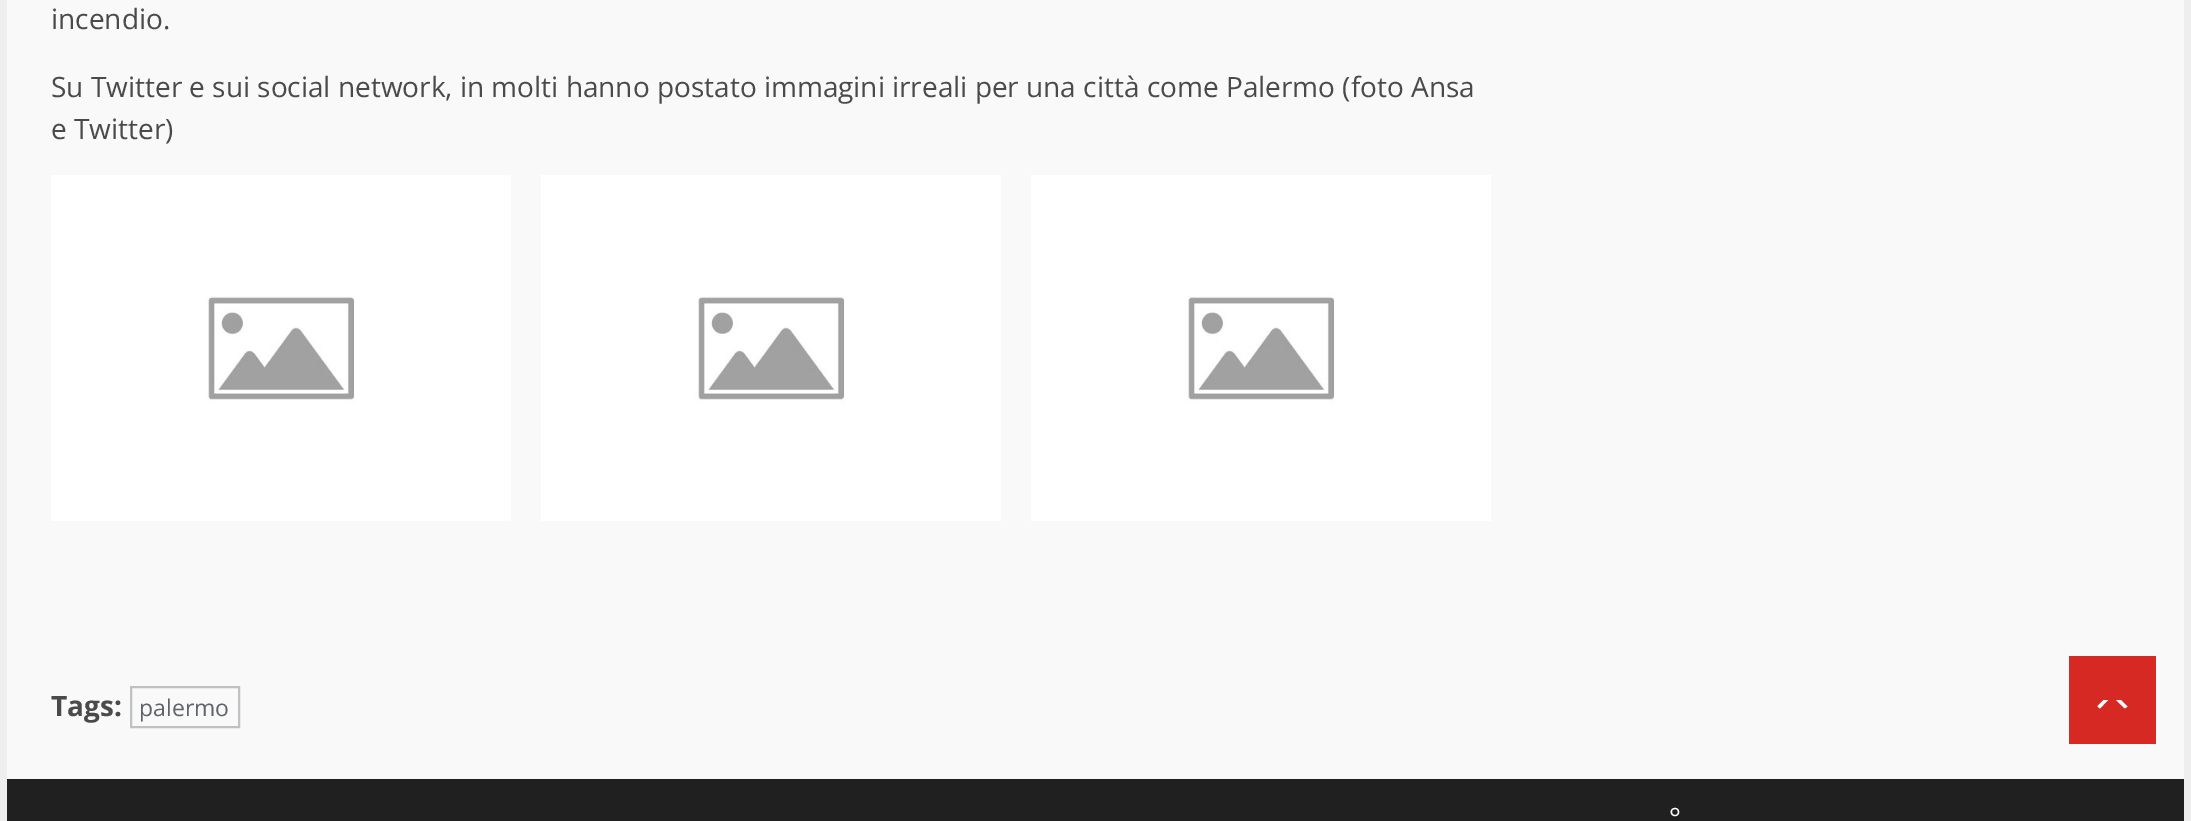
%!PS
<< /PageSize [2191 821] >> setpagedevice
/rgb { 3 { 255 div 3 1 roll } repeat setrgbcolor } def
/font { [ exch dup neg 0 0 3 -1 roll 0 0 ] selectfont } def
/text { moveto show } def
/picture { 5 dict begin { /h /w /y /x /name } { exch def } forall
  gsave x y translate w h scale
  w h 8 [w 0 0 h 0 0] name (r) file false 3 colorimage grestore end } def
0 821 translate 1 -1 scale
4 setmiterlimit
238 238 238 rgb
0 0 2191 821 rectfill
249 249 249 rgb
7 0 2177 779 rectfill
(img_01.rgb) 51 175 460 346 picture
(img_01.rgb) 541 175 460 346 picture
(img_01.rgb) 1031 175 460 346 picture
191 193 195 rgb
2 setlinewidth
131 687 108 40 rectstroke
32 32 32 rgb
7 779 2177 42 rectfill
215 41 36 rgb
2069 656 87 88 rectfill
255 255 255 rgb
2101.5 709 moveto -2 -0.5 -3 -1.5 -4 -3 rcurveto 6 -6 rlineto 17.5 0 rlineto 6.5 6.5 rlineto -1.5 1 -2.5 2 -4.5 2.5 rcurveto closepath fill
215 41 36 rgb
2130 714 moveto -35 0 rlineto 17 -17.5 rlineto closepath fill
/OpenSans-Regular 28 font
74 74 74 rgb
(incendio.) 51 29 text
(Su Twitter e sui social network, in molti hanno postato immagini irreali per una città come Palermo \(foto Ansa) 51 97 text
(e Twitter\)) 51 139 text
/OpenSans-Bold 28 font
(Tags:) 51 716 text
/OpenSans-Regular 23 font
95 99 106 rgb
(palermo) 139 716 text
/OpenSans-Regular 28 font
255 255 255 rgb
(°) 1669 828 text
showpage
